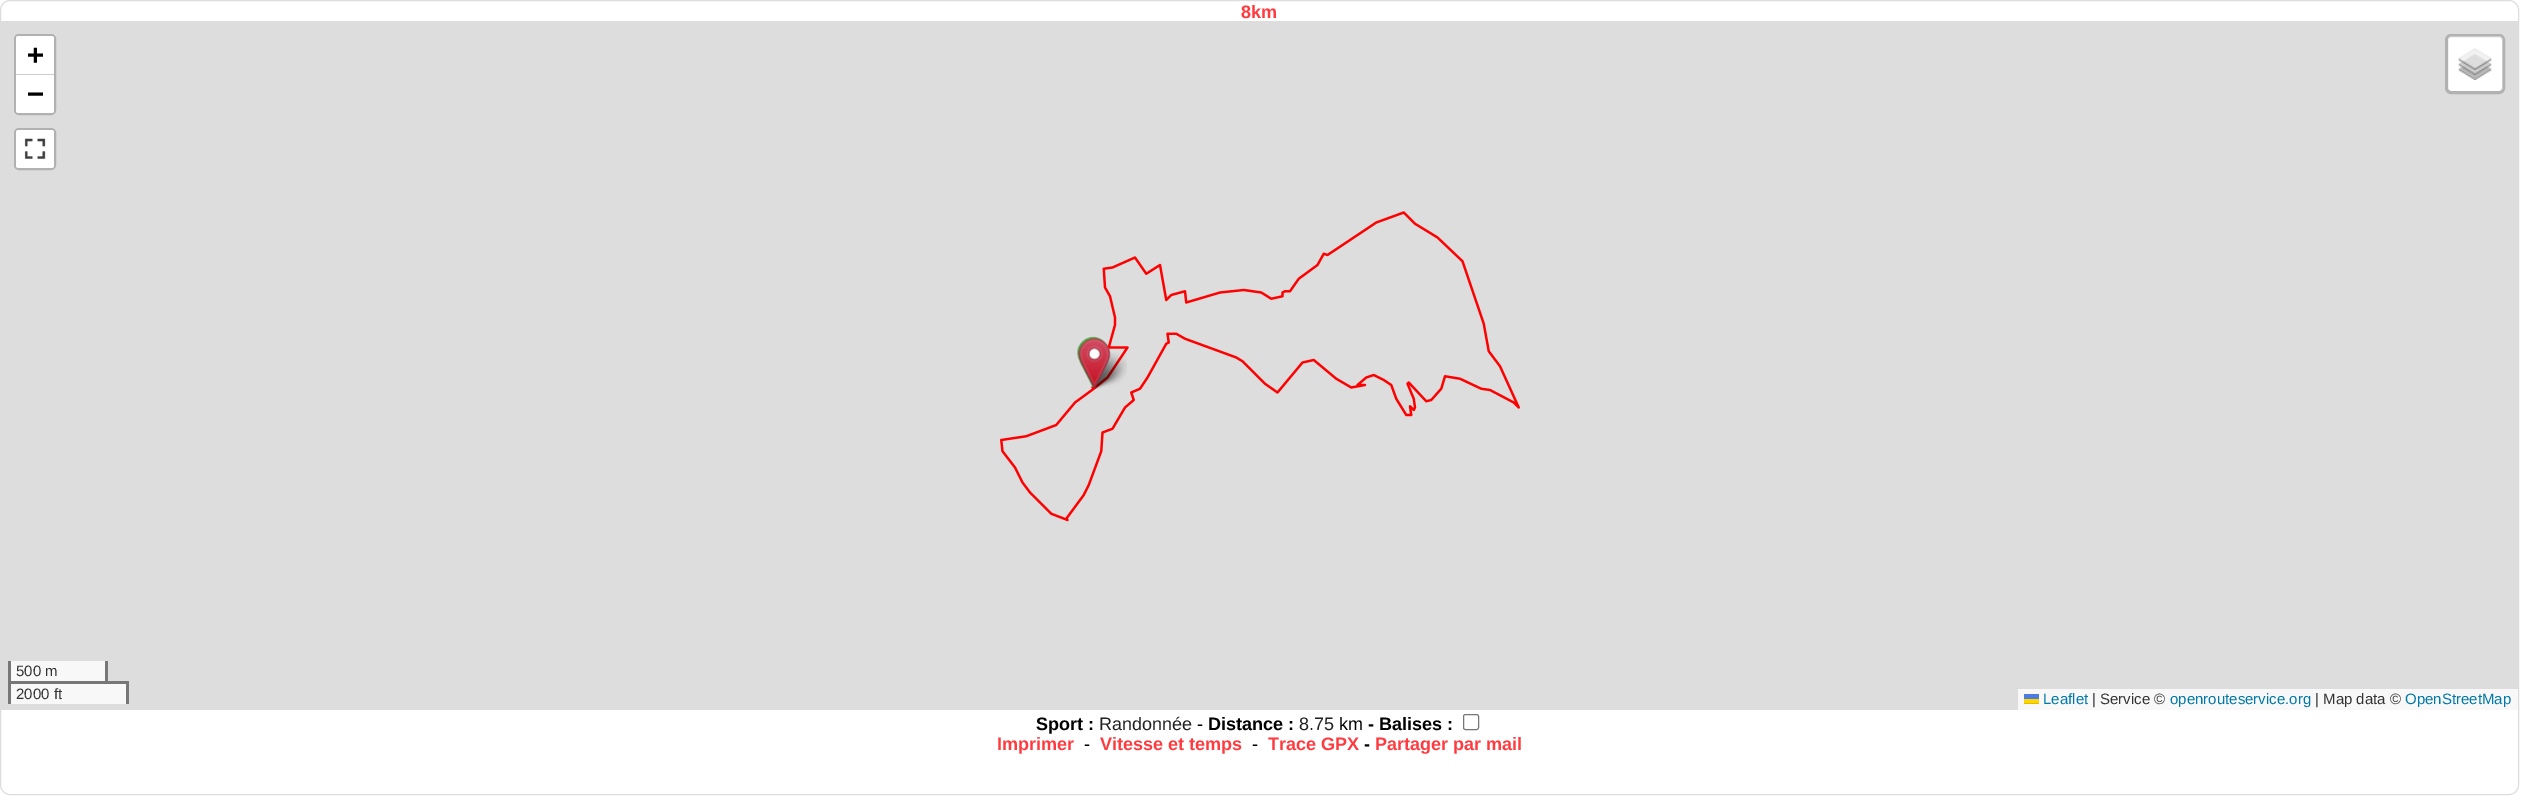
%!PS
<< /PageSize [2541 800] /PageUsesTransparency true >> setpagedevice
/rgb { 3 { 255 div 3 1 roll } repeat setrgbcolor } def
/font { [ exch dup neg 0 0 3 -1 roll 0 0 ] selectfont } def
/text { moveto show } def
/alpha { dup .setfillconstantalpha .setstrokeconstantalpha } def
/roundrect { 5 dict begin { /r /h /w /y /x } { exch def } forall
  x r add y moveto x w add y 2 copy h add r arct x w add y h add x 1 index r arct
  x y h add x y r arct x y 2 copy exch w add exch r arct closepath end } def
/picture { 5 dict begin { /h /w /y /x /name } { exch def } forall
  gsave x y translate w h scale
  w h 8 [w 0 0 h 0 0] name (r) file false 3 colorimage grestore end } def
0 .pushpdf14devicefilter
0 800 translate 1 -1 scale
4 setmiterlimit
255 255 255 rgb
0 0 2541 800 rectfill
221 221 221 rgb
0.5 0.5 2518 794 9.5 roundrect stroke
1 21 2517 689 rectfill
248 248 248 rgb
11 684 115 20 rectfill
177 177 177 rgb
3 setlinewidth
15.5 35.5 39 78 3.5 roundrect stroke
255 255 255 rgb
18.5 36 moveto 33 0 rlineto 1.5 0 2.5 1 2.5 2.5 rcurveto 0 36.5 rlineto -38 0 rlineto 0 -36.5 rlineto 0 -1.5 1 -2.5 2.5 -2.5 rcurveto closepath fill
204 204 204 rgb
16 74 38 1 rectfill
255 255 255 rgb
16 75 moveto 38 0 rlineto 0 35.5 rlineto 0 1.5 -1 2.5 -2.5 2.5 rcurveto -33 0 rlineto -1.5 0 -2.5 -1 -2.5 -2.5 rcurveto closepath fill
177 177 177 rgb
15.5 129.5 39 39 3.5 roundrect stroke
255 255 255 rgb
16 130 38 38 2.5 roundrect fill
(img_01.rgb) 24 138 22 21 picture
2448 36 55 55 4 roundrect fill
0.2 alpha
0 0 0 rgb
2446.5 35.5 57 57 4.5 roundrect stroke
1 alpha
(img_02.rgb) 2458 48 34 32 picture
248 248 248 rgb
11 661 94 20 rectfill
119 119 119 rgb
105 661 3 23 rectfill
8 661 3 23 rectfill
8 681 121 3 rectfill
126 681 3 23 rectfill
8 681 3 23 rectfill
248 248 248 rgb
2018 689 500 21 rectfill
76 123 225 rgb
2024 694 15 5 rectfill
255 213 0 rgb
2024 699 15 4 rectfill
224 188 0 rgb
2024 703 15 1 rectfill
(img_03.rgb) 1000 211 520 311 picture
(img_06.rgb) 1089 352 37 36 picture
(img_07.rgb) 1091 353 36 36 picture
(img_04.rgb) 1077 336 33 52 picture
(img_05.rgb) 1078 337 33 52 picture
118 118 118 rgb
1 setlinewidth
1463.5 714.5 15 15 2 roundrect stroke
/LiberationSans-Bold 18 font
255 59 63 rgb
(8km) 1241 18 text
/DejaVuSansMono-Bold 28 font
0 0 0 rgb
(+) 27 64 text
(−) 27 103 text
/LiberationSans-Regular 15 font
51 51 51 rgb
(500 m) 16 676 text
(2000 ft) 16 699 text
0 120 168 rgb
(Leaflet) 2043 704 text
51 51 51 rgb
(| Service ©) 2092 704 text
0 120 168 rgb
(openrouteservice.org) 2170 704 text
51 51 51 rgb
(| Map data ©) 2315 704 text
0 120 168 rgb
(OpenStreetMap) 2405 704 text
/LiberationSans-Bold 18 font
0 0 0 rgb
(Sport :) 1036 730 text
/LiberationSans-Regular 18 font
34 34 34 rgb
(Randonnée) 1099 730 text
0 0 0 rgb
(-) 1197 730 text
/LiberationSans-Bold 18 font
(Distance :) 1208 730 text
/LiberationSans-Regular 18 font
34 34 34 rgb
(8.75) 1299 730 text
0 0 0 rgb
(km) 1339 730 text
/LiberationSans-Bold 18 font
(- Balises :) 1368 730 text
255 59 63 rgb
(Imprimer) 997 750 text
/LiberationSans-Regular 18 font
0 0 0 rgb
(-) 1084 750 text
/LiberationSans-Bold 18 font
255 59 63 rgb
(Vitesse et temps) 1100 750 text
/LiberationSans-Regular 18 font
0 0 0 rgb
(-) 1252 750 text
/LiberationSans-Bold 18 font
255 59 63 rgb
(Trace GPX) 1268 750 text
0 0 0 rgb
(-) 1364 750 text
255 59 63 rgb
(Partager par mail) 1375 750 text
.poppdf14devicefilter showpage
